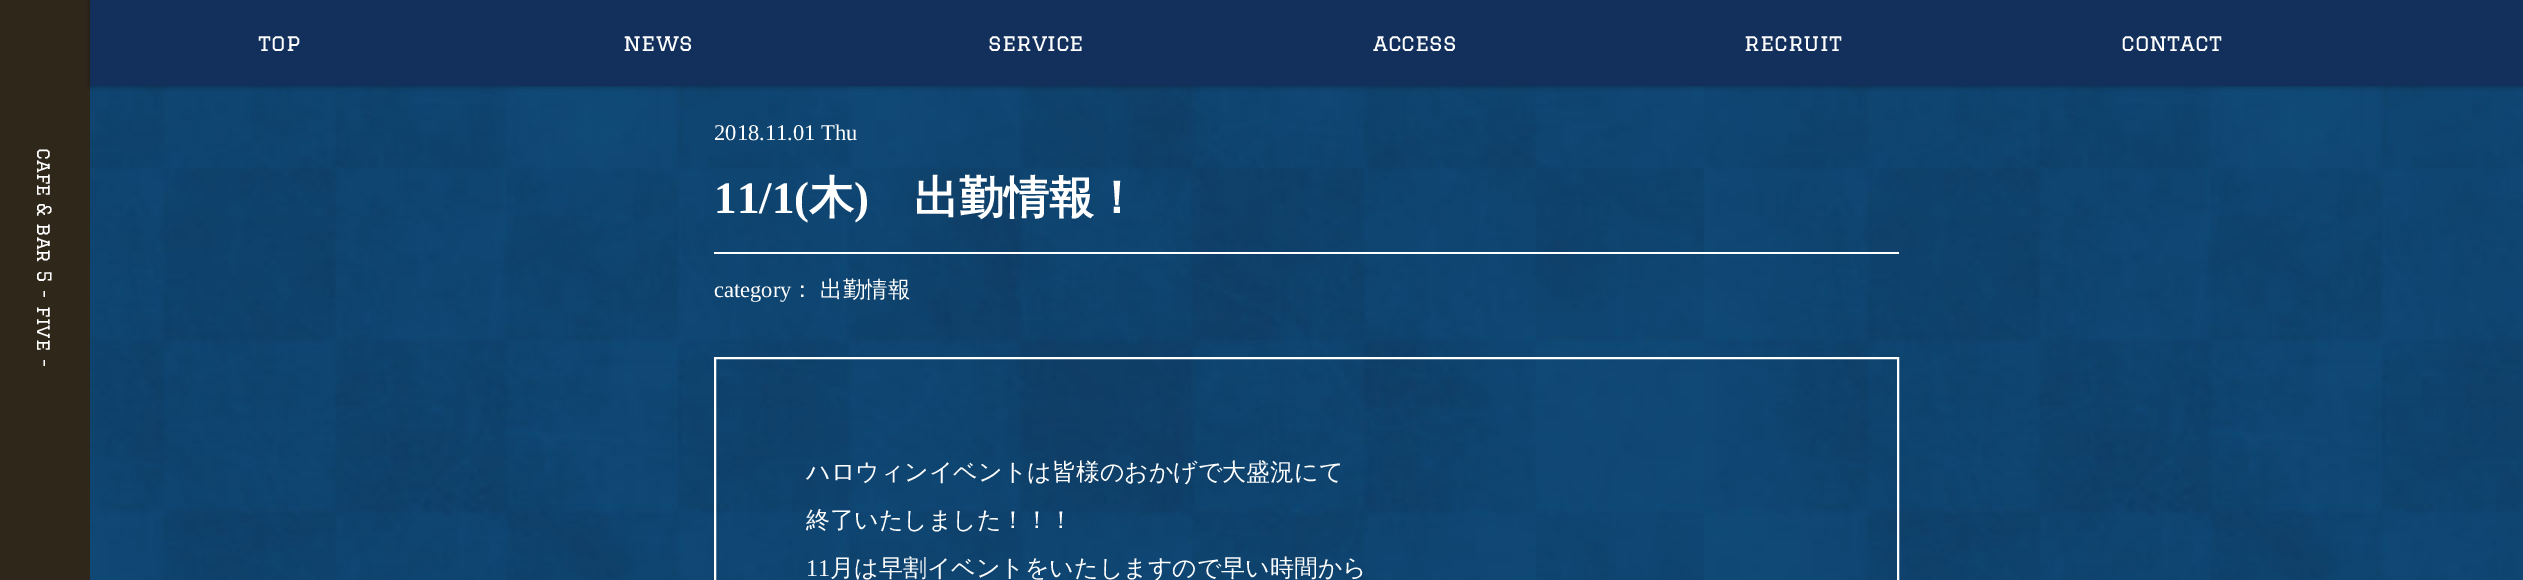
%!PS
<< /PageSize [2523 580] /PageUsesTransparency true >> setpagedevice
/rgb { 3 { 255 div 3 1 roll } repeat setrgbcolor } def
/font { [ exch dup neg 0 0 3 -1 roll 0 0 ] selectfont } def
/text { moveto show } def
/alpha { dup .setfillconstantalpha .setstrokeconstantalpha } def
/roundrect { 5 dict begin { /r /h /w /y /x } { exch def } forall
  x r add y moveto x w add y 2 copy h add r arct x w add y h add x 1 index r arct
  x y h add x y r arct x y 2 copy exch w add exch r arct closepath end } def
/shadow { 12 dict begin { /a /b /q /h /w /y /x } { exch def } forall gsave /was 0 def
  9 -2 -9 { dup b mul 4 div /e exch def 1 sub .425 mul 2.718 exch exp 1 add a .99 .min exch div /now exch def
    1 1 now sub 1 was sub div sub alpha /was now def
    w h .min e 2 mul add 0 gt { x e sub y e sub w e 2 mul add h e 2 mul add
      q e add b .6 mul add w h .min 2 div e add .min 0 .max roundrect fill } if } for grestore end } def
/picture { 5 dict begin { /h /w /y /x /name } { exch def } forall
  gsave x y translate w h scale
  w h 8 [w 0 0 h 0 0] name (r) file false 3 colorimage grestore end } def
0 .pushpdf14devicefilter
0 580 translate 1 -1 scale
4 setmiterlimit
255 255 255 rgb
0 0 2523 580 rectfill
(img_01.rgb) 90 86 2433 494 picture
48 39 27 rgb
0 0 90 580 rectfill
0 0 0 rgb
90 0 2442 86 0 3 0.4 shadow
18 48 91 rgb
90 0 2433 86 rectfill
255 255 255 rgb
714 252 1185 2 rectfill
2 setlinewidth
715 358 1183 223 rectstroke
/Graduate-Regular 22.5 font
(top) 258 51 text
(news) 623 51 text
(service) 988 51 text
(access) 1373 51 text
(recruit) 1744 51 text
(contact) 2121 51 text
/Graduate-Regular 19.5 font
gsave 37 148 translate 90 rotate 0 0 moveto (cafe & bar 5 - five -) show grestore
/LiberationSerif-Regular 22.5 font
(2018.11.01 Thu) 714 140 text
/LiberationSerif-Bold 45 font
(11/1\() 714 213 text
/WenQuanYiZenHei-Bold 45 font
(木) 809 213 text
/LiberationSerif-Bold 45 font
(\)) 854 213 text
/WenQuanYiZenHei-Bold 45 font
(出勤情報！) 914 213 text
/LiberationSerif-Regular 22.5 font
(category) 714 297 text
/WenQuanYiZenHei-Medium 22.5 font
(：) 791 297 text
(出勤情報) 820 297 text
/WenQuanYiZenHei-Medium 24 font
(ハロウィンイベントは皆様のおかげで大盛況にて) 806 480 text
(終了いたしました！！！) 806 528 text
/LiberationSerif-Regular 24 font
(11) 806 576 text
/WenQuanYiZenHei-Medium 24 font
(月は早割イベントをいたしますので早い時間から) 830 576 text
.poppdf14devicefilter showpage
